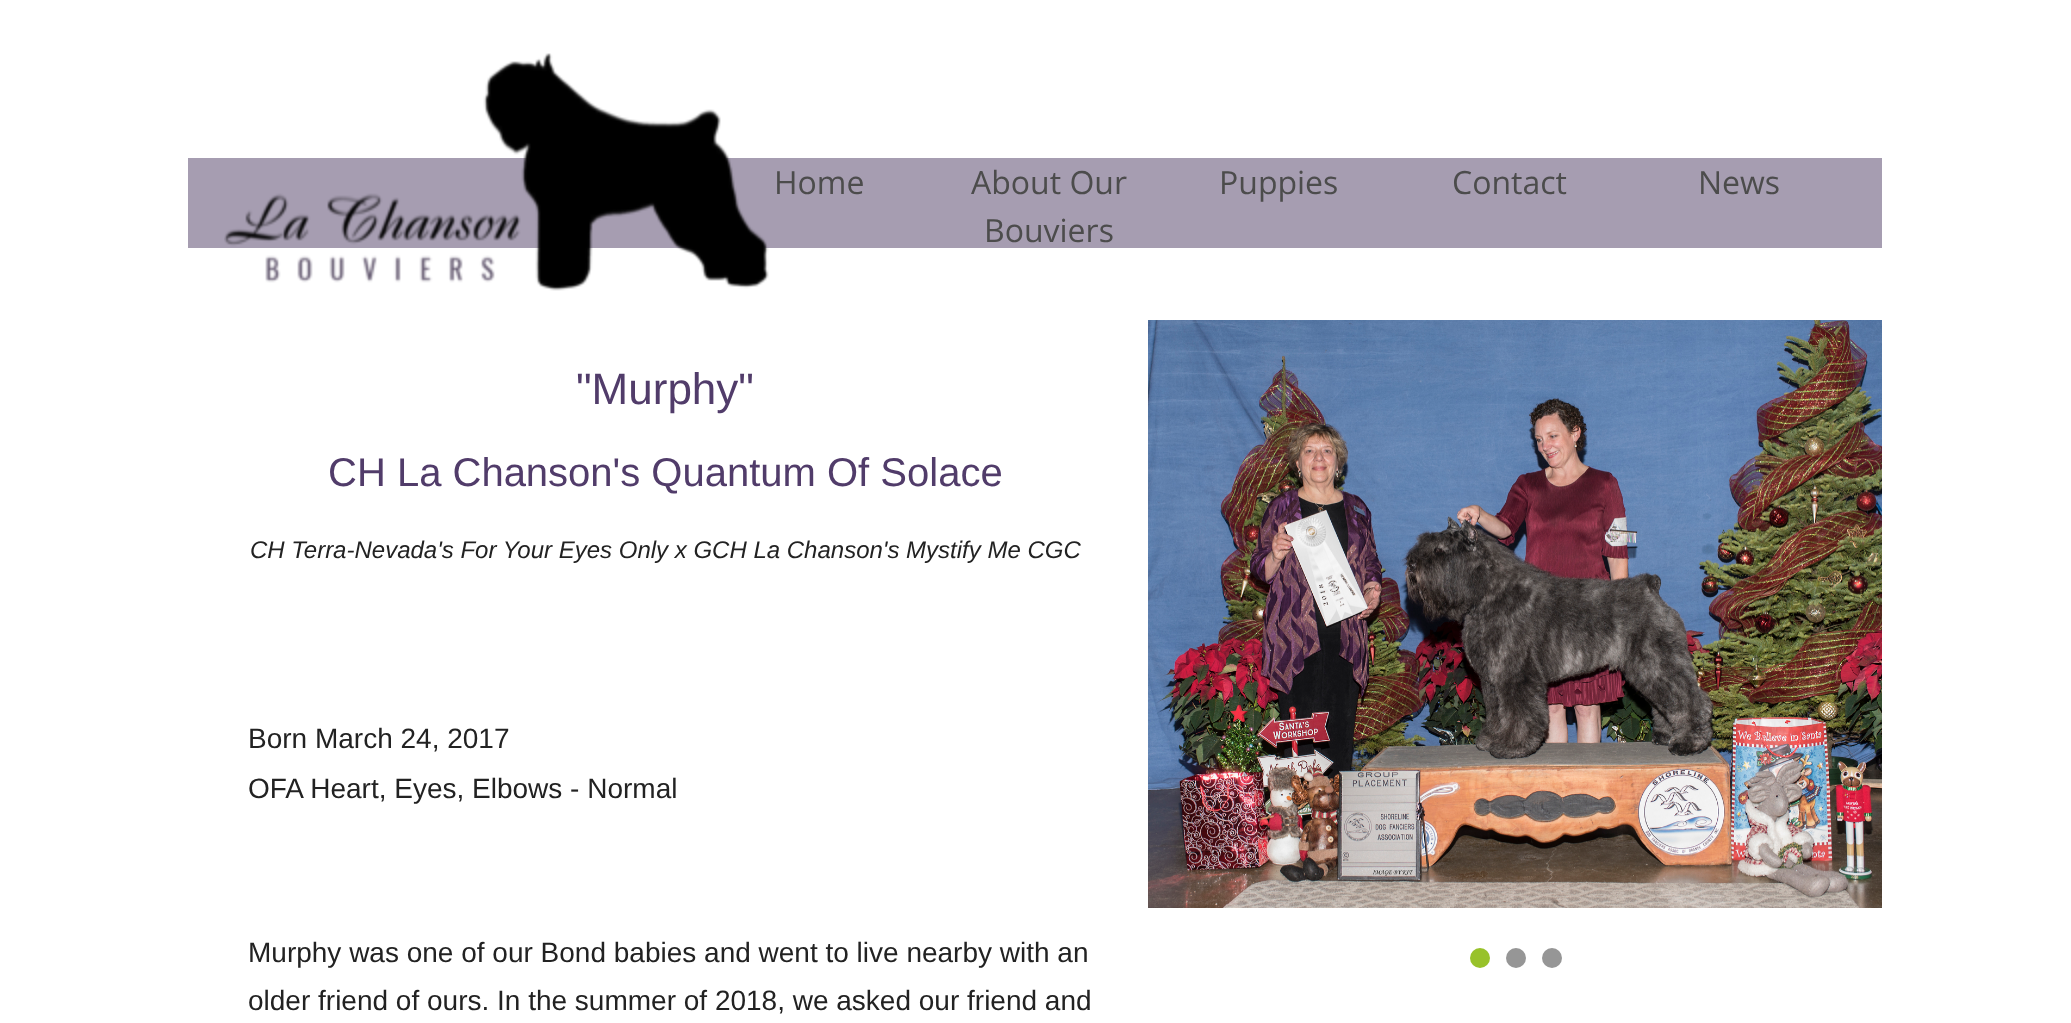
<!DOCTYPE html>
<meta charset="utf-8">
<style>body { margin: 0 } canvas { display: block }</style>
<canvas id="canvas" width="2071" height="1023"></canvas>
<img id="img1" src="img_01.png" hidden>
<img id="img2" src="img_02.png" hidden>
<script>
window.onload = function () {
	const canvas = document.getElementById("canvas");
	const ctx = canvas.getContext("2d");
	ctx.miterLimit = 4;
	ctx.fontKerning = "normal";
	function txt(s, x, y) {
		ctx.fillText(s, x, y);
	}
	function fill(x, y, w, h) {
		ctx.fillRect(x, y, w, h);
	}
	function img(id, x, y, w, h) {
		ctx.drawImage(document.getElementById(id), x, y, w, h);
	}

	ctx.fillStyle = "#FFFFFF";
	fill(0, 0, 2071, 1023);
	ctx.fillStyle = "#A69DB1";
	fill(188, 158, 1694, 90);
	img("img1", 224, 53, 545, 238);
	img("img2", 1148, 320, 734, 588);
	ctx.fillStyle = "#98C22A";
	ctx.beginPath();
	ctx.arc(1480, 958, 10, 0, Math.PI * 2);
	ctx.fill();
	ctx.fillStyle = "#969696";
	ctx.beginPath();
	ctx.arc(1516, 958, 10, 0, Math.PI * 2);
	ctx.fill();
	ctx.beginPath();
	ctx.arc(1552, 958, 10, 0, Math.PI * 2);
	ctx.fill();
	ctx.font = "32px Open Sans";
	ctx.fillStyle = "#4C4C4C";
	txt("Home", 774, 194);
	txt("About Our", 971, 194);
	txt("Bouviers", 984, 242);
	txt("Puppies", 1219, 194);
	txt("Contact", 1452, 194);
	txt("News", 1698, 194);
	ctx.font = "44px Liberation Sans";
	ctx.fillStyle = "#513C6A";
	txt("\"Murphy\"", 576, 404);
	ctx.font = "40px Liberation Sans";
	txt("CH La Chanson's Quantum Of Solace", 328, 486);
	ctx.font = "italic 24px Liberation Sans";
	ctx.fillStyle = "#222222";
	txt("CH Terra-Nevada's For Your Eyes Only x GCH La Chanson's Mystify Me CGC", 250, 558);
	ctx.font = "28px Liberation Sans";
	txt("Born March 24, 2017", 248, 748);
	txt("OFA Heart, Eyes, Elbows - Normal", 248, 798);
	txt("Murphy was one of our Bond babies and went to live nearby with an", 248, 962);
	txt("older friend of ours. In the summer of 2018, we asked our friend and", 248, 1010);
};
</script>
